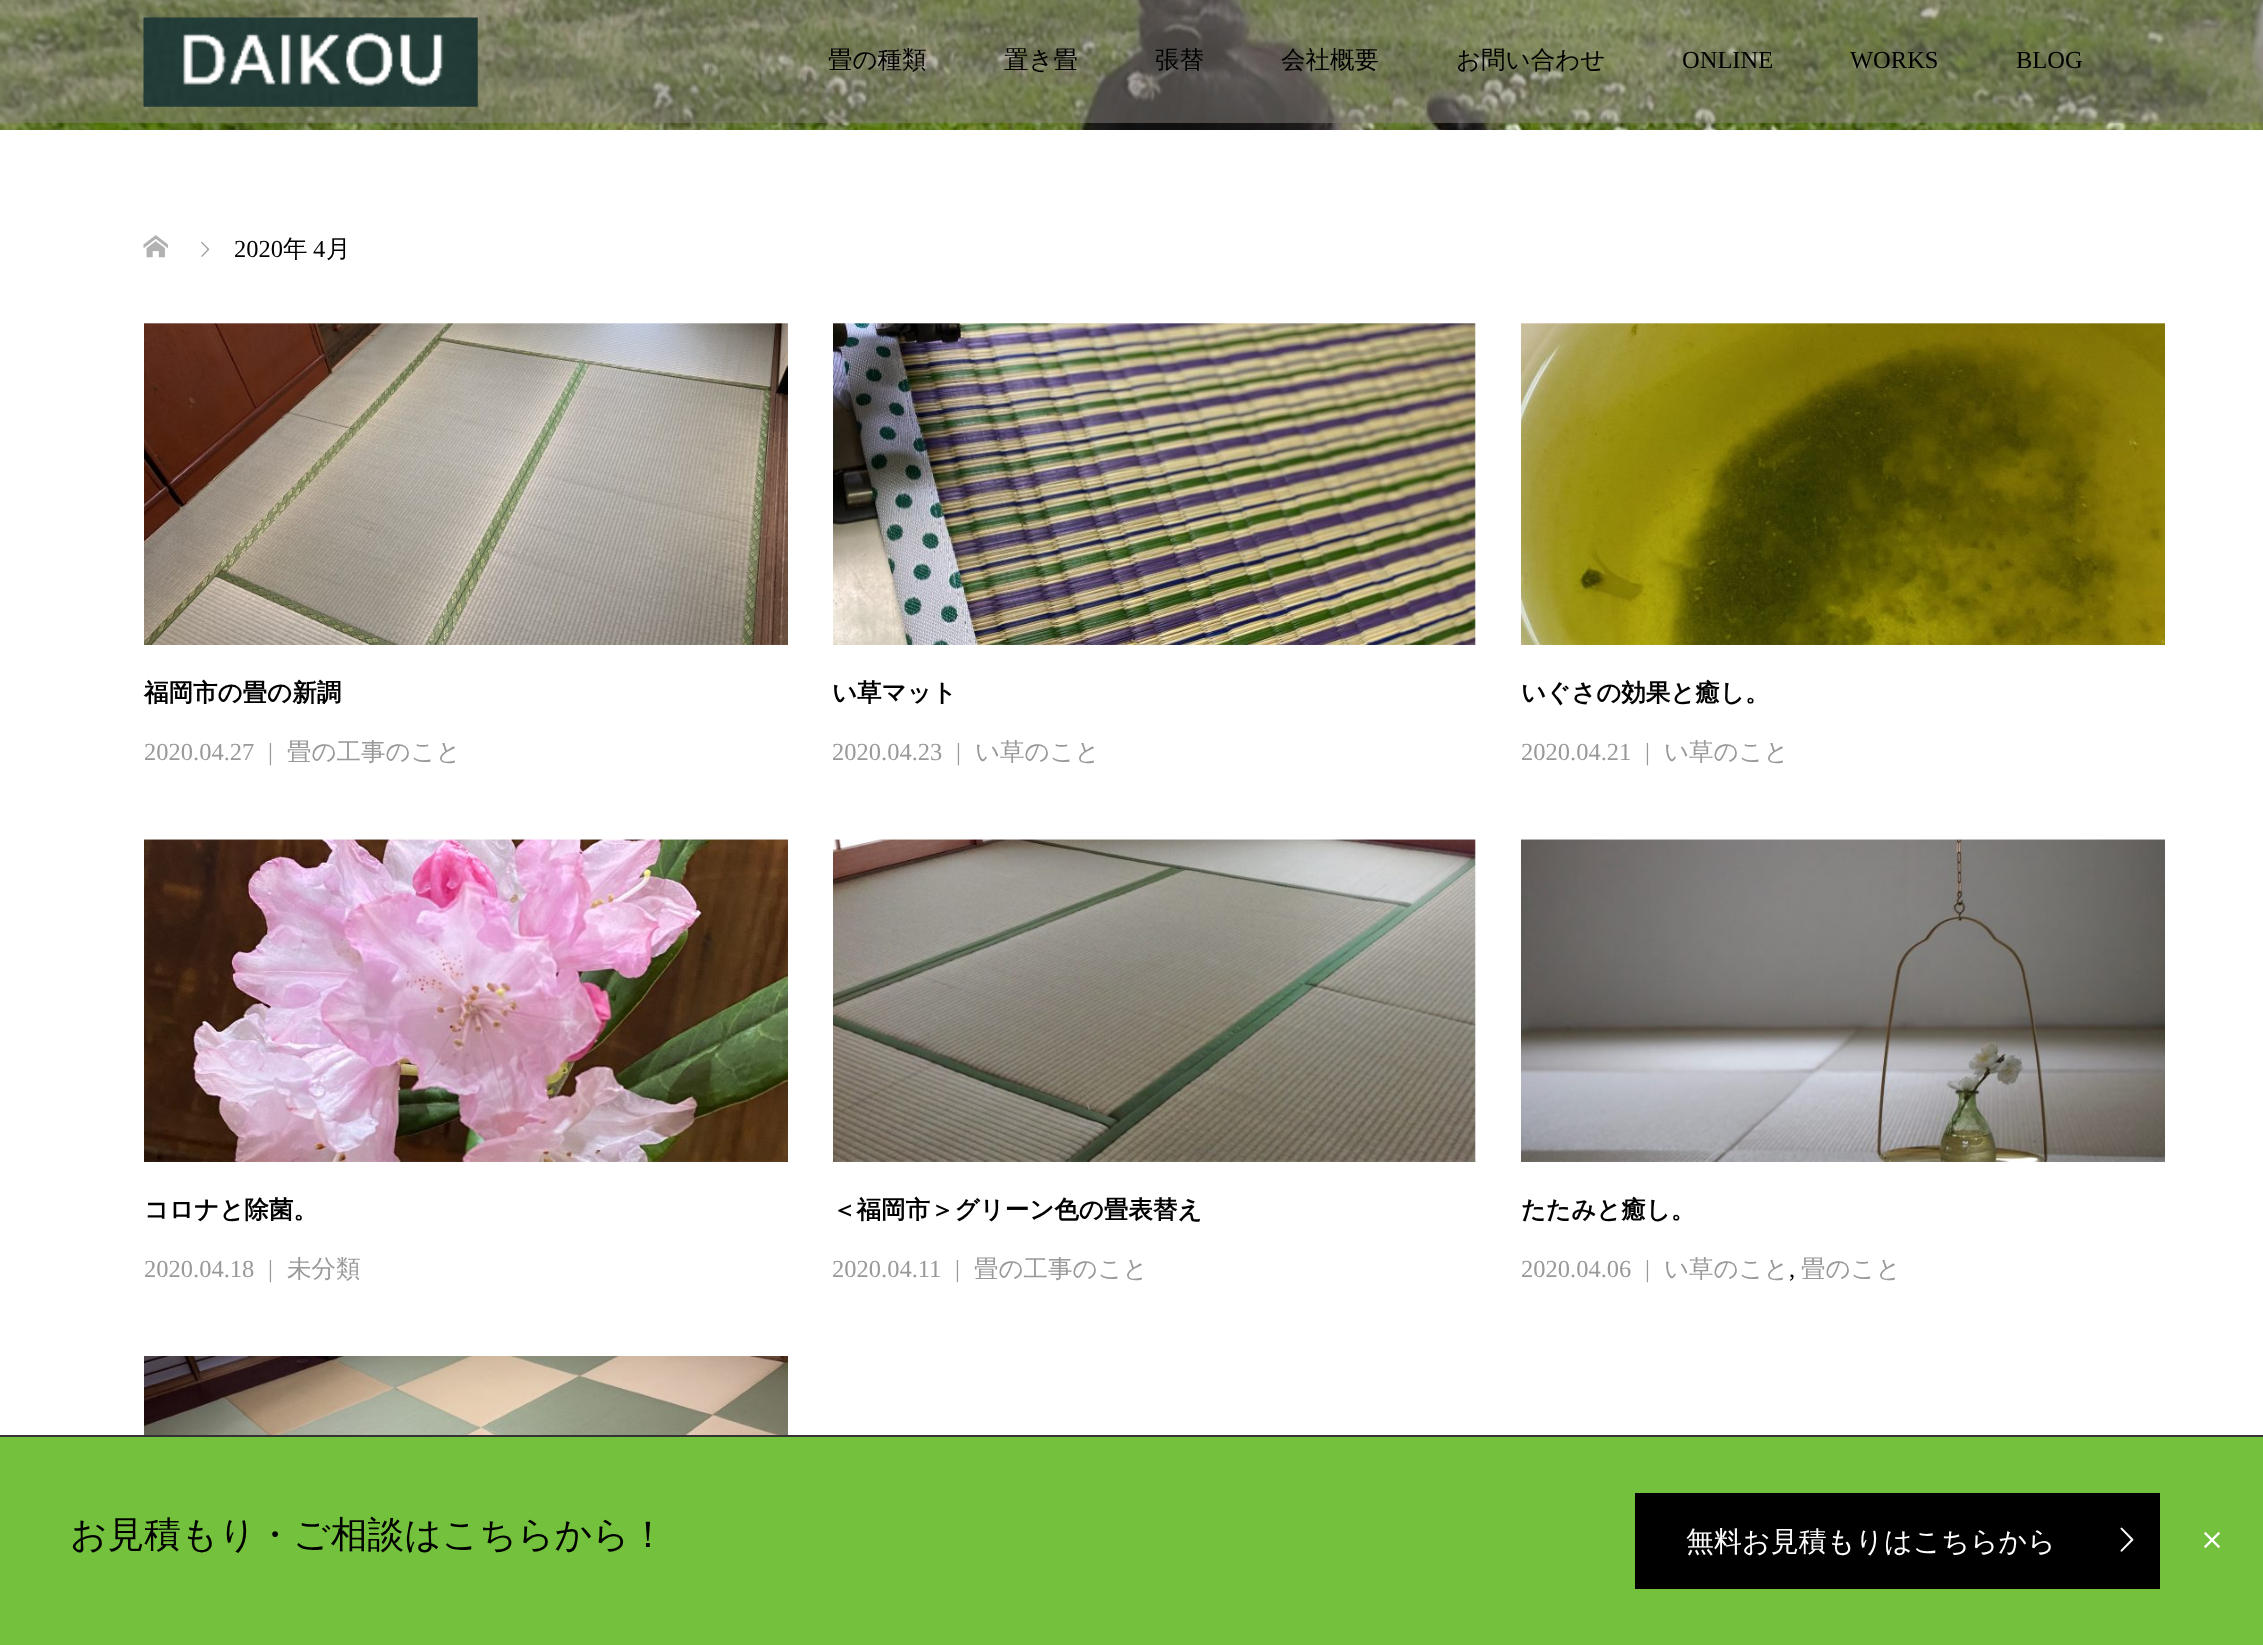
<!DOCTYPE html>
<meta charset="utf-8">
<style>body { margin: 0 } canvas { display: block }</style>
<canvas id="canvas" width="2263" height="1645"></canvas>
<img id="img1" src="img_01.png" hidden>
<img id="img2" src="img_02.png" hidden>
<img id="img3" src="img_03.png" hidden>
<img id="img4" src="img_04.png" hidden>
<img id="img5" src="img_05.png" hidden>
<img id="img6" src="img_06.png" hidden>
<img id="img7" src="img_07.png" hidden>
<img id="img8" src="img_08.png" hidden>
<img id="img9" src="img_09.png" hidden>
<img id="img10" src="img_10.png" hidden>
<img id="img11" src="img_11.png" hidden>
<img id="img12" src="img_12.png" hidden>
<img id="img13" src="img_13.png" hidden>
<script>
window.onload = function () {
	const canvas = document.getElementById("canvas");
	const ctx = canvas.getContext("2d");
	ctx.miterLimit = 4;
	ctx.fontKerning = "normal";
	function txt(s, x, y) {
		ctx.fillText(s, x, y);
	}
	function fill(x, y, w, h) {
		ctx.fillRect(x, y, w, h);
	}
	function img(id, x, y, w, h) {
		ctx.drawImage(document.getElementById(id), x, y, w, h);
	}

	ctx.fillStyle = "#FFFFFF";
	fill(0, 0, 2263, 1645);
	img("img1", 0, 0, 2263, 130);
	img("img2", 143, 17, 335, 90);
	img("img3", 143, 235, 25, 23);
	img("img4", 201, 241, 9, 16);
	img("img5", 144, 323, 644, 322);
	img("img6", 833, 323, 643, 322);
	img("img7", 1521, 323, 644, 322);
	img("img8", 144, 839, 644, 323);
	img("img9", 833, 839, 643, 323);
	img("img10", 1521, 839, 644, 323);
	img("img11", 144, 1356, 644, 79);
	ctx.fillStyle = "#73C13C";
	fill(0, 1437, 2263, 208);
	ctx.fillStyle = "#333333";
	fill(0, 1435, 2263, 2);
	ctx.fillStyle = "#000000";
	fill(1635, 1493, 525, 96);
	img("img12", 2120, 1527, 14, 25);
	img("img13", 2203, 1531, 18, 18);
	ctx.font = "500 24.5px WenQuanYi Zen Hei";
	txt("畳の種類", 828, 68);
	txt("置き畳", 1004, 68);
	txt("張替", 1155, 68);
	txt("会社概要", 1281, 68);
	txt("お問い合わせ", 1456, 68);
	ctx.font = "24.5px Liberation Serif";
	txt("ONLINE", 1682, 68);
	txt("WORKS", 1850, 68);
	txt("BLOG", 2016, 68);
	txt("2020", 234, 257);
	ctx.font = "500 24.5px WenQuanYi Zen Hei";
	txt("年", 283, 257);
	ctx.font = "24.5px Liberation Serif";
	txt("4", 313, 257);
	ctx.font = "500 24.5px WenQuanYi Zen Hei";
	txt("月", 326, 257);
	ctx.font = "bold 24.5px WenQuanYi Zen Hei";
	txt("福岡市の畳の新調", 144, 701);
	ctx.font = "24.5px Liberation Serif";
	ctx.fillStyle = "#999999";
	txt("2020.04.27", 144, 760);
	txt("|", 268, 760);
	ctx.font = "500 24.5px WenQuanYi Zen Hei";
	txt("畳の工事のこと", 287, 760);
	ctx.font = "bold 24.5px WenQuanYi Zen Hei";
	ctx.fillStyle = "#000000";
	txt("い草マット", 832, 701);
	ctx.font = "24.5px Liberation Serif";
	ctx.fillStyle = "#999999";
	txt("2020.04.23", 832, 760);
	txt("|", 956, 760);
	ctx.font = "500 24.5px WenQuanYi Zen Hei";
	txt("い草のこと", 975, 760);
	ctx.font = "bold 24.5px WenQuanYi Zen Hei";
	ctx.fillStyle = "#000000";
	txt("いぐさの効果と癒し。", 1521, 701);
	ctx.font = "24.5px Liberation Serif";
	ctx.fillStyle = "#999999";
	txt("2020.04.21", 1521, 760);
	txt("|", 1645, 760);
	ctx.font = "500 24.5px WenQuanYi Zen Hei";
	txt("い草のこと", 1664, 760);
	ctx.font = "bold 24.5px WenQuanYi Zen Hei";
	ctx.fillStyle = "#000000";
	txt("コロナと除菌。", 144, 1218);
	ctx.font = "24.5px Liberation Serif";
	ctx.fillStyle = "#999999";
	txt("2020.04.18", 144, 1277);
	txt("|", 268, 1277);
	ctx.font = "500 24.5px WenQuanYi Zen Hei";
	txt("未分類", 287, 1277);
	ctx.font = "bold 24.5px WenQuanYi Zen Hei";
	ctx.fillStyle = "#000000";
	txt("＜福岡市＞グリーン色の畳表替え", 832, 1218);
	ctx.font = "24.5px Liberation Serif";
	ctx.fillStyle = "#999999";
	txt("2020.04.11", 832, 1277);
	txt("|", 955, 1277);
	ctx.font = "500 24.5px WenQuanYi Zen Hei";
	txt("畳の工事のこと", 974, 1277);
	ctx.font = "bold 24.5px WenQuanYi Zen Hei";
	ctx.fillStyle = "#000000";
	txt("たたみと癒し。", 1521, 1218);
	ctx.font = "24.5px Liberation Serif";
	ctx.fillStyle = "#999999";
	txt("2020.04.06", 1521, 1277);
	txt("|", 1645, 1277);
	ctx.font = "500 24.5px WenQuanYi Zen Hei";
	txt("い草のこと", 1664, 1277);
	ctx.font = "24.5px Liberation Serif";
	ctx.fillStyle = "#000000";
	txt(",", 1789, 1277);
	ctx.font = "500 24.5px WenQuanYi Zen Hei";
	ctx.fillStyle = "#999999";
	txt("畳のこと", 1801, 1277);
	ctx.font = "500 36.75px WenQuanYi Zen Hei";
	ctx.fillStyle = "#000000";
	txt("お見積もり・ご相談はこちらから！", 70, 1547);
	ctx.font = "500 28px WenQuanYi Zen Hei";
	ctx.fillStyle = "#FFFFFF";
	txt("無料お見積もりはこちらから", 1686, 1551);
};
</script>
